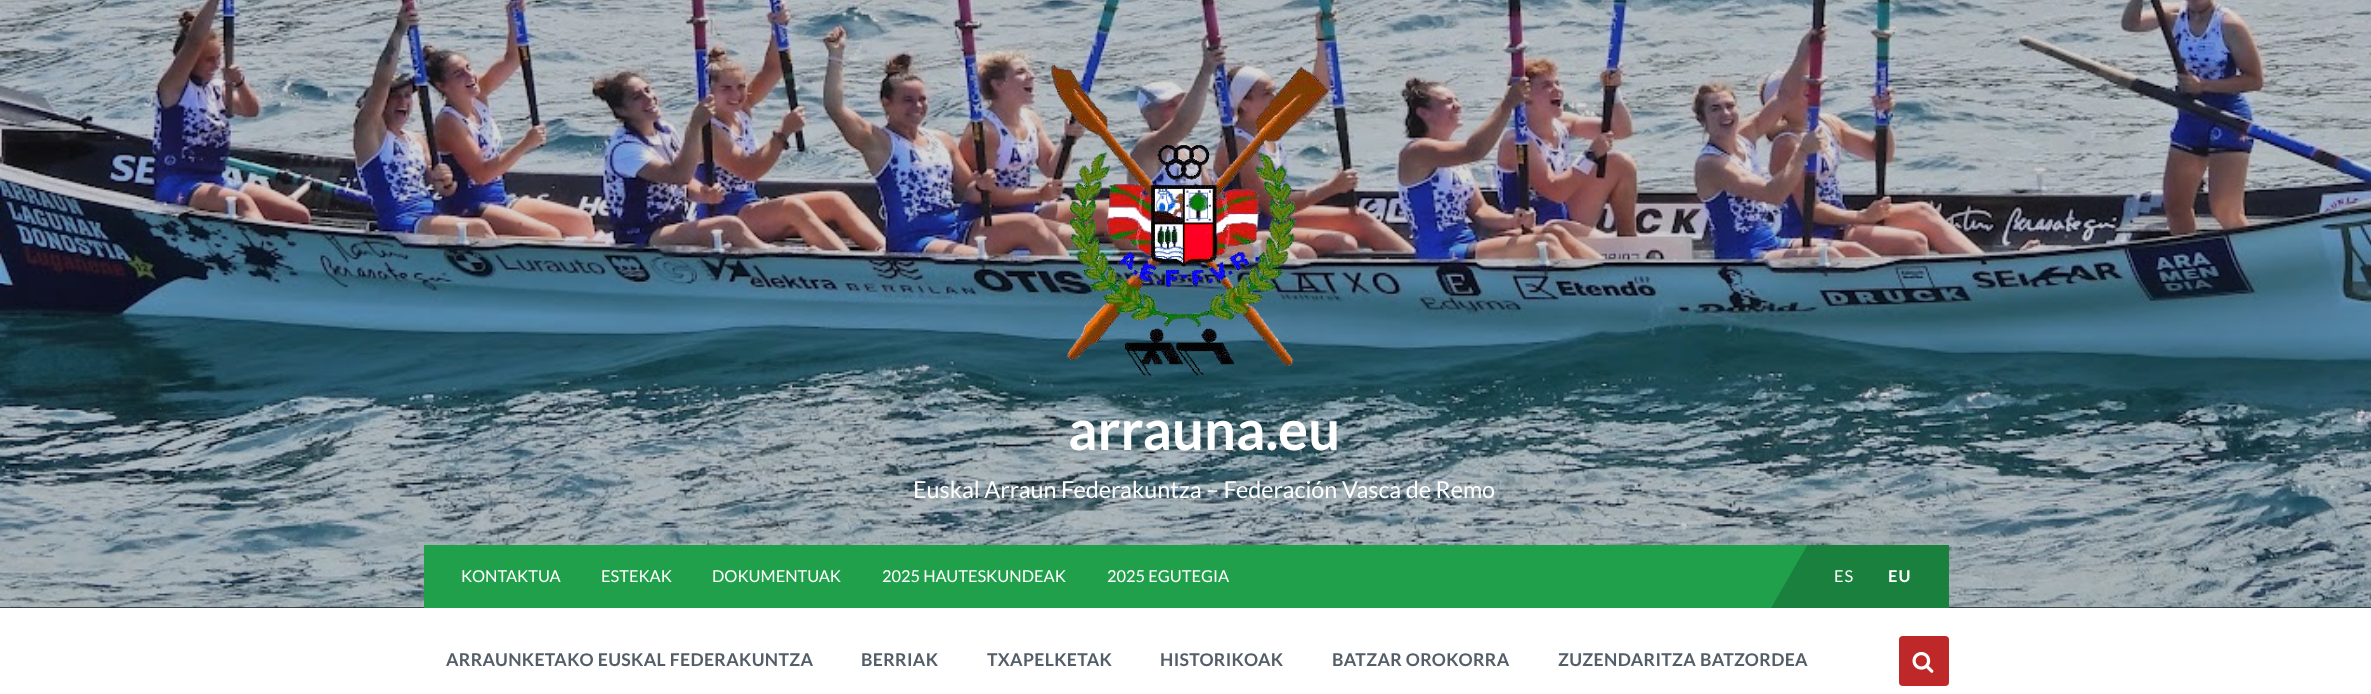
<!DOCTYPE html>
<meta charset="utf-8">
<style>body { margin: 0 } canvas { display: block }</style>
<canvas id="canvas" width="2371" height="694"></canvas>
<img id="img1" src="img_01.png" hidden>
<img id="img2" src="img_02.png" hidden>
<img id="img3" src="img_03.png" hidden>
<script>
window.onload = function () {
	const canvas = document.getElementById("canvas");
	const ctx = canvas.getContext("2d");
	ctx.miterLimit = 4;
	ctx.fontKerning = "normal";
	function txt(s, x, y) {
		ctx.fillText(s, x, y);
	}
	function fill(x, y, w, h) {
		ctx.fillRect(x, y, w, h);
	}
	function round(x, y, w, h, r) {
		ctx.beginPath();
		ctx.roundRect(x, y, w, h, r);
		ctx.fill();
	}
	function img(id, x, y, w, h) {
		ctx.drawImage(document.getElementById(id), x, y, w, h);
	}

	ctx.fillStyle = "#FFFFFF";
	fill(0, 0, 2371, 694);
	ctx.fillStyle = "#1E2427";
	fill(0, 607, 2371, 1);
	img("img1", 0, 0, 2371, 608);
	ctx.fillStyle = "rgba(0, 0, 0, 0.15)";
	fill(0, 0, 2371, 608);
	img("img2", 1051, 64, 278, 314);
	ctx.fillStyle = "#21A04C";
	fill(424, 545, 1384, 63);
	ctx.save();
	ctx.beginPath();
	ctx.rect(424, 545, 1525, 63);
	ctx.clip();
	ctx.fillStyle = "#1A803D";
	ctx.beginPath();
	ctx.moveTo(1888, 405);
	ctx.lineTo(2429, 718);
	ctx.lineTo(2304, 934);
	ctx.lineTo(1763, 622);
	ctx.closePath();
	ctx.fill();
	ctx.restore();
	ctx.fillStyle = "#BF2828";
	round(1899, 636, 50, 50, 4);
	img("img3", 1912, 652, 22, 21);
	ctx.font = "bold 56.25px Lato";
	ctx.fillStyle = "#FFFFFF";
	txt("arrauna.eu", 1068, 450);
	ctx.font = "23.4px Lato";
	txt("Euskal Arraun Federakuntza – Federación Vasca de Remo", 913, 498);
	ctx.font = "16.4px Lato";
	txt("KONTAKTUA", 461, 582);
	txt("ESTEKAK", 601, 582);
	txt("DOKUMENTUAK", 712, 582);
	txt("2025 HAUTESKUNDEAK", 882, 582);
	txt("2025 EGUTEGIA", 1107, 582);
	ctx.letterSpacing = "1px";
	txt("ES", 1834, 582);
	ctx.font = "bold 16.4px Lato";
	txt("EU", 1888, 582);
	ctx.letterSpacing = "0.35px";
	ctx.font = "bold 17.6px Lato";
	ctx.fillStyle = "#545E69";
	txt("ARRAUNKETAKO EUSKAL FEDERAKUNTZA", 446, 666);
	txt("BERRIAK", 861, 666);
	txt("TXAPELKETAK", 987, 666);
	txt("HISTORIKOAK", 1160, 666);
	txt("BATZAR OROKORRA", 1332, 666);
	txt("ZUZENDARITZA BATZORDEA", 1558, 666);
};
</script>
